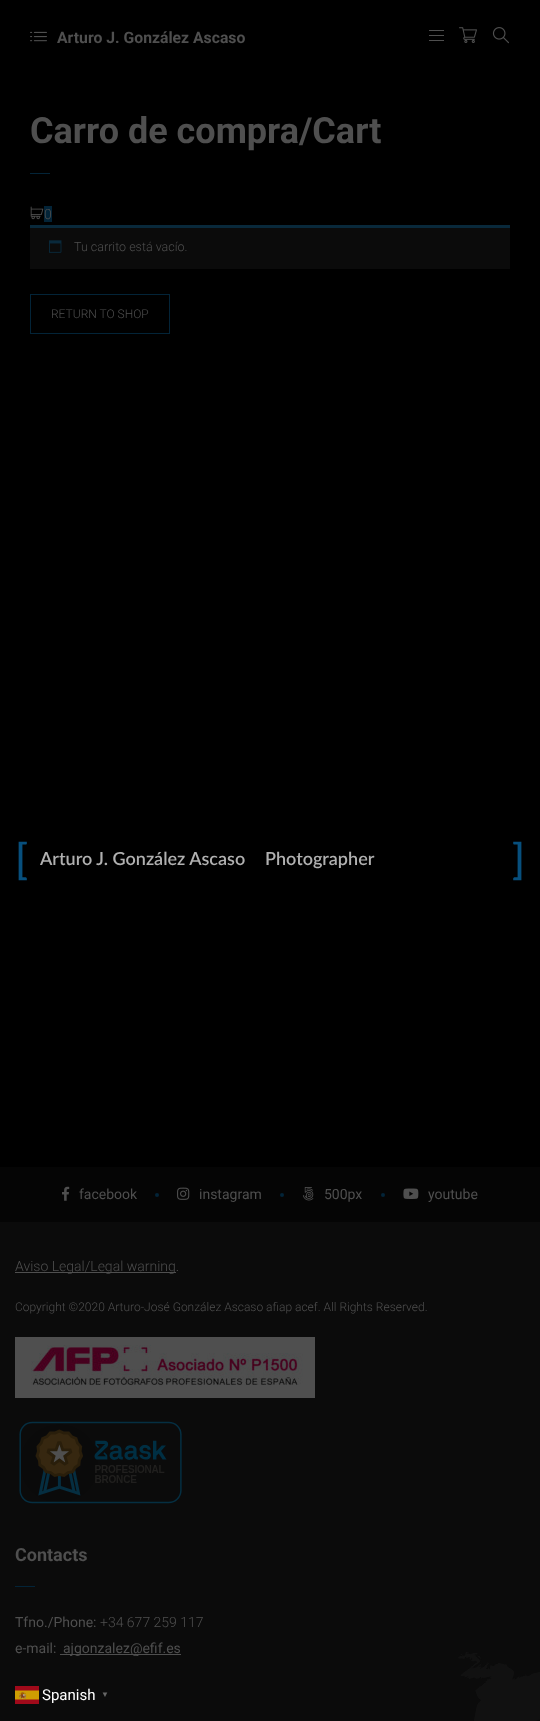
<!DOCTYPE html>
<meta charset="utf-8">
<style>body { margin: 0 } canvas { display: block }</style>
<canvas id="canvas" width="540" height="1721"></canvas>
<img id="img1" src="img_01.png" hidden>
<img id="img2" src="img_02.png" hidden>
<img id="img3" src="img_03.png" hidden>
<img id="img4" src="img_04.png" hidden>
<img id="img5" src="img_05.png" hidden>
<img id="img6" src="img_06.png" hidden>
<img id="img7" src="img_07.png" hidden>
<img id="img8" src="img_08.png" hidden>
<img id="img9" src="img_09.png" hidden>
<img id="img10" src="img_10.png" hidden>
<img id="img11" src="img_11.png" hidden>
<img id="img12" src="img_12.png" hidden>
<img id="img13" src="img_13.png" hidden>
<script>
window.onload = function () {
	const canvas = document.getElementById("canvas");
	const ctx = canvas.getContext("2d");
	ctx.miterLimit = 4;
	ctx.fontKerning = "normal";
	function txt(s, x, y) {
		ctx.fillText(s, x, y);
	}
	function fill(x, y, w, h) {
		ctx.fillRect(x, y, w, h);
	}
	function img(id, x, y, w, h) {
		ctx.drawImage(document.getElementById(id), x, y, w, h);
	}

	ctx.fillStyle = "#000000";
	fill(0, 0, 540, 1721);
	img("img1", 30, 31, 17, 11);
	ctx.fillStyle = "#4F4F4F";
	fill(429, 30, 15, 1);
	fill(429, 35, 15, 1);
	fill(429, 40, 15, 1);
	img("img2", 459, 27, 18, 16);
	img("img3", 492, 27, 17, 17);
	ctx.fillStyle = "#032438";
	fill(30, 173, 20, 1);
	img("img4", 30, 206, 14, 14);
	fill(44, 206, 8, 16);
	ctx.fillStyle = "#0B0B0B";
	fill(30, 228, 480, 41);
	ctx.fillStyle = "#09293B";
	fill(30, 225, 480, 3);
	img("img5", 49, 240, 13, 13);
	ctx.strokeStyle = "#032438";
	ctx.strokeRect(30.5, 294.5, 139, 39);
	ctx.fillStyle = "#050505";
	fill(0, 1167, 540, 55);
	img("img6", 62, 1186, 8, 15);
	ctx.fillStyle = "#032438";
	ctx.beginPath();
	ctx.arc(157, 1195, 2, 0, Math.PI * 2);
	ctx.fill();
	img("img7", 177, 1187, 13, 13);
	ctx.beginPath();
	ctx.arc(282, 1195, 2, 0, Math.PI * 2);
	ctx.fill();
	img("img8", 302, 1187, 12, 14);
	ctx.beginPath();
	ctx.arc(383, 1195, 2, 0, Math.PI * 2);
	ctx.fill();
	img("img9", 403, 1188, 16, 11);
	ctx.fillStyle = "#0B0B0B";
	fill(0, 1222, 540, 499);
	img("img10", 458, 1652, 82, 69);
	ctx.fillStyle = "#4F4F4F";
	fill(15, 1272, 161, 1);
	img("img11", 15, 1337, 300, 61);
	img("img12", 19, 1421, 163, 83);
	ctx.fillStyle = "#032438";
	fill(15, 1586, 20, 1);
	ctx.fillStyle = "#4F4F4F";
	fill(60, 1654, 121, 1);
	img("img13", 15, 1686, 24, 18);
	ctx.font = "bold 15.75px Roboto";
	txt("Arturo J. González Ascaso", 57, 43);
	ctx.font = "bold 36px Roboto";
	txt("Carro de compra/Cart", 30, 143);
	ctx.font = "300 14px Roboto";
	txt("0", 44, 219);
	ctx.font = "300 12.5px Roboto";
	txt("Tu carrito está vacío.", 74, 251);
	ctx.font = "300 12px Roboto";
	txt("RETURN TO SHOP", 51, 318);
	ctx.font = "600 42px Lato";
	ctx.fillStyle = "#074F7D";
	txt("[", 15, 874);
	ctx.font = "600 18px Lato";
	ctx.fillStyle = "#B0B0B0";
	txt("Arturo J. González Ascaso", 40, 865);
	txt("Photographer", 265, 865);
	ctx.font = "600 42px Lato";
	ctx.fillStyle = "#074F7D";
	txt("]", 512, 874);
	ctx.font = "14px Roboto";
	ctx.fillStyle = "#4F4F4F";
	txt("facebook", 79, 1199);
	txt("instagram", 199, 1199);
	txt("500px", 324, 1199);
	txt("youtube", 428, 1199);
	ctx.font = "300 14px Roboto";
	txt("Aviso Legal/Legal warning.", 15, 1271);
	ctx.font = "300 12px Roboto";
	txt("Copyright ©2020 Arturo-José González Ascaso afiap acef. All Rights Reserved.", 15, 1311);
	ctx.font = "bold 18px Roboto";
	txt("Contacts", 15, 1561);
	ctx.font = "14px Roboto";
	txt("Tfno./Phone:", 15, 1627);
	ctx.font = "300 14px Roboto";
	txt("+34 677 259 117", 100, 1627);
	ctx.font = "14px Roboto";
	txt("e-mail:", 15, 1653);
	txt("ajgonzalez@efif.es", 63, 1653);
	ctx.font = "15px Roboto";
	ctx.fillStyle = "#FFFFFF";
	txt("Spanish", 42, 1700);
	ctx.font = "bold 8px Liberation Serif";
	ctx.fillStyle = "#666666";
	txt("▼", 101, 1697);
};
</script>
